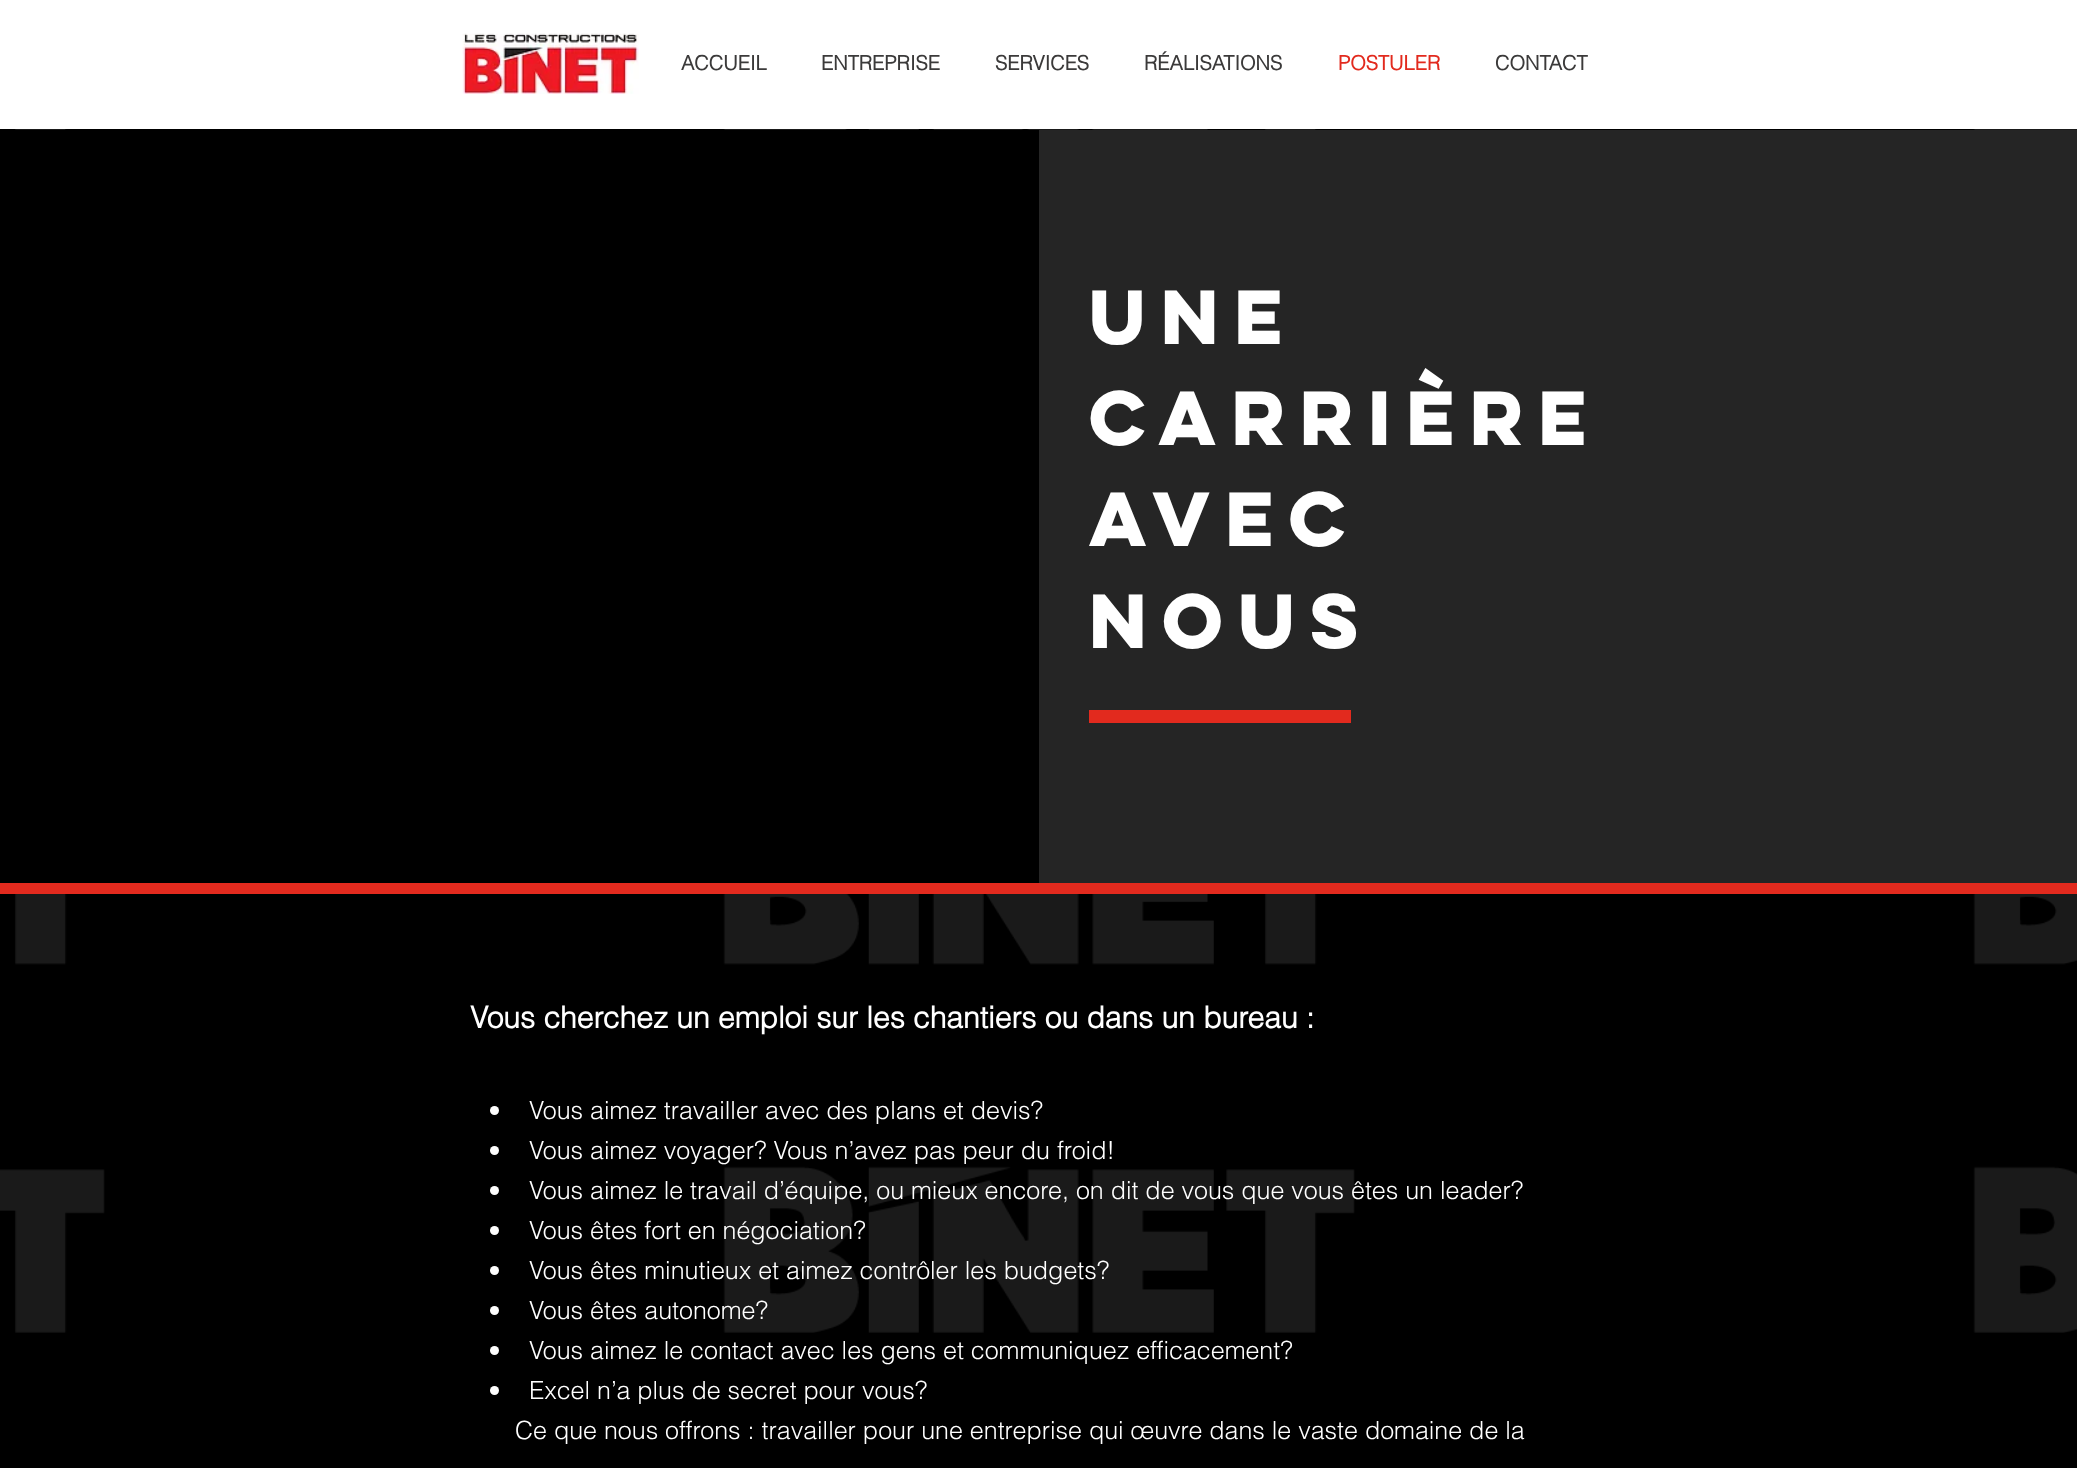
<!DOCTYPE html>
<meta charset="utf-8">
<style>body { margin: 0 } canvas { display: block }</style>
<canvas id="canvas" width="2077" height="1468"></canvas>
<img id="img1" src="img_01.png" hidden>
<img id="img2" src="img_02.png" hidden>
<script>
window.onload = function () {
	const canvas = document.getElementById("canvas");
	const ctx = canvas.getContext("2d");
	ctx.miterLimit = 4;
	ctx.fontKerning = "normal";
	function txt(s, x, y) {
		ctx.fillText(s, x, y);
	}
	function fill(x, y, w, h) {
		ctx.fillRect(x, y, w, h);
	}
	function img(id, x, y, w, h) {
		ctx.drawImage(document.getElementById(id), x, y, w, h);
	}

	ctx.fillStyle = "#000000";
	fill(0, 0, 2077, 1468);
	ctx.fillStyle = "#FFFFFF";
	fill(0, 0, 2077, 129);
	img("img1", 462, 33, 177, 61);
	img("img2", 0, 129, 2077, 1204);
	ctx.fillStyle = "#000000";
	fill(0, 130, 1039, 753);
	ctx.fillStyle = "#252525";
	fill(1039, 130, 1038, 753);
	ctx.fillStyle = "#E22A1E";
	fill(1089, 710, 262, 13);
	fill(0, 883, 2077, 11);
	ctx.fillStyle = "#FFFFFF";
	ctx.beginPath();
	ctx.arc(494.5, 1110.5, 4.5, 0, Math.PI * 2);
	ctx.fill();
	ctx.beginPath();
	ctx.arc(494.5, 1150.5, 4.5, 0, Math.PI * 2);
	ctx.fill();
	ctx.beginPath();
	ctx.arc(494.5, 1190.5, 4.5, 0, Math.PI * 2);
	ctx.fill();
	ctx.beginPath();
	ctx.arc(494.5, 1230.5, 4.5, 0, Math.PI * 2);
	ctx.fill();
	ctx.beginPath();
	ctx.arc(494.5, 1270.5, 4.5, 0, Math.PI * 2);
	ctx.fill();
	ctx.beginPath();
	ctx.arc(494.5, 1310.5, 4.5, 0, Math.PI * 2);
	ctx.fill();
	ctx.beginPath();
	ctx.arc(494.5, 1350.5, 4.5, 0, Math.PI * 2);
	ctx.fill();
	ctx.beginPath();
	ctx.arc(494.5, 1390.5, 4.5, 0, Math.PI * 2);
	ctx.fill();
	ctx.font = "bold 20px helvetica";
	ctx.fillStyle = "#3B3A3A";
	txt("ACCUEIL", 681, 70);
	txt("ENTREPRISE", 821, 70);
	txt("SERVICES", 995, 70);
	txt("RÉALISATIONS", 1144, 70);
	ctx.fillStyle = "#E22A1E";
	txt("POSTULER", 1338, 70);
	ctx.fillStyle = "#3B3A3A";
	txt("CONTACT", 1495, 70);
	ctx.font = "bold 68.75px 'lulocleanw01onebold'";
	ctx.fillStyle = "#FFFFFF";
	txt("UNE", 1089, 344);
	txt("CARRIÈRE", 1089, 445);
	txt("AVEC", 1089, 546);
	txt("NOUS", 1089, 648);
	ctx.font = "bold 30px helvetica";
	txt("Vous cherchez un emploi sur les chantiers ou dans un bureau :", 470, 1028);
	ctx.font = "300 25px helvetica";
	txt("  Vous aimez travailler avec des plans et devis?", 515, 1119);
	txt("  Vous aimez voyager? Vous n’avez pas peur du froid!", 515, 1159);
	txt("  Vous aimez le travail d’équipe, ou mieux encore, on dit de vous que vous êtes un leader?", 515, 1199);
	txt("  Vous êtes fort en négociation?", 515, 1239);
	txt("  Vous êtes minutieux et aimez contrôler les budgets?", 515, 1279);
	txt("  Vous êtes autonome?", 515, 1319);
	txt("  Vous aimez le contact avec les gens et communiquez efficacement?", 515, 1359);
	txt("  Excel n’a plus de secret pour vous?", 515, 1399);
	txt("Ce que nous offrons : travailler pour une entreprise qui œuvre dans le vaste domaine de la", 515, 1439);
};
</script>
